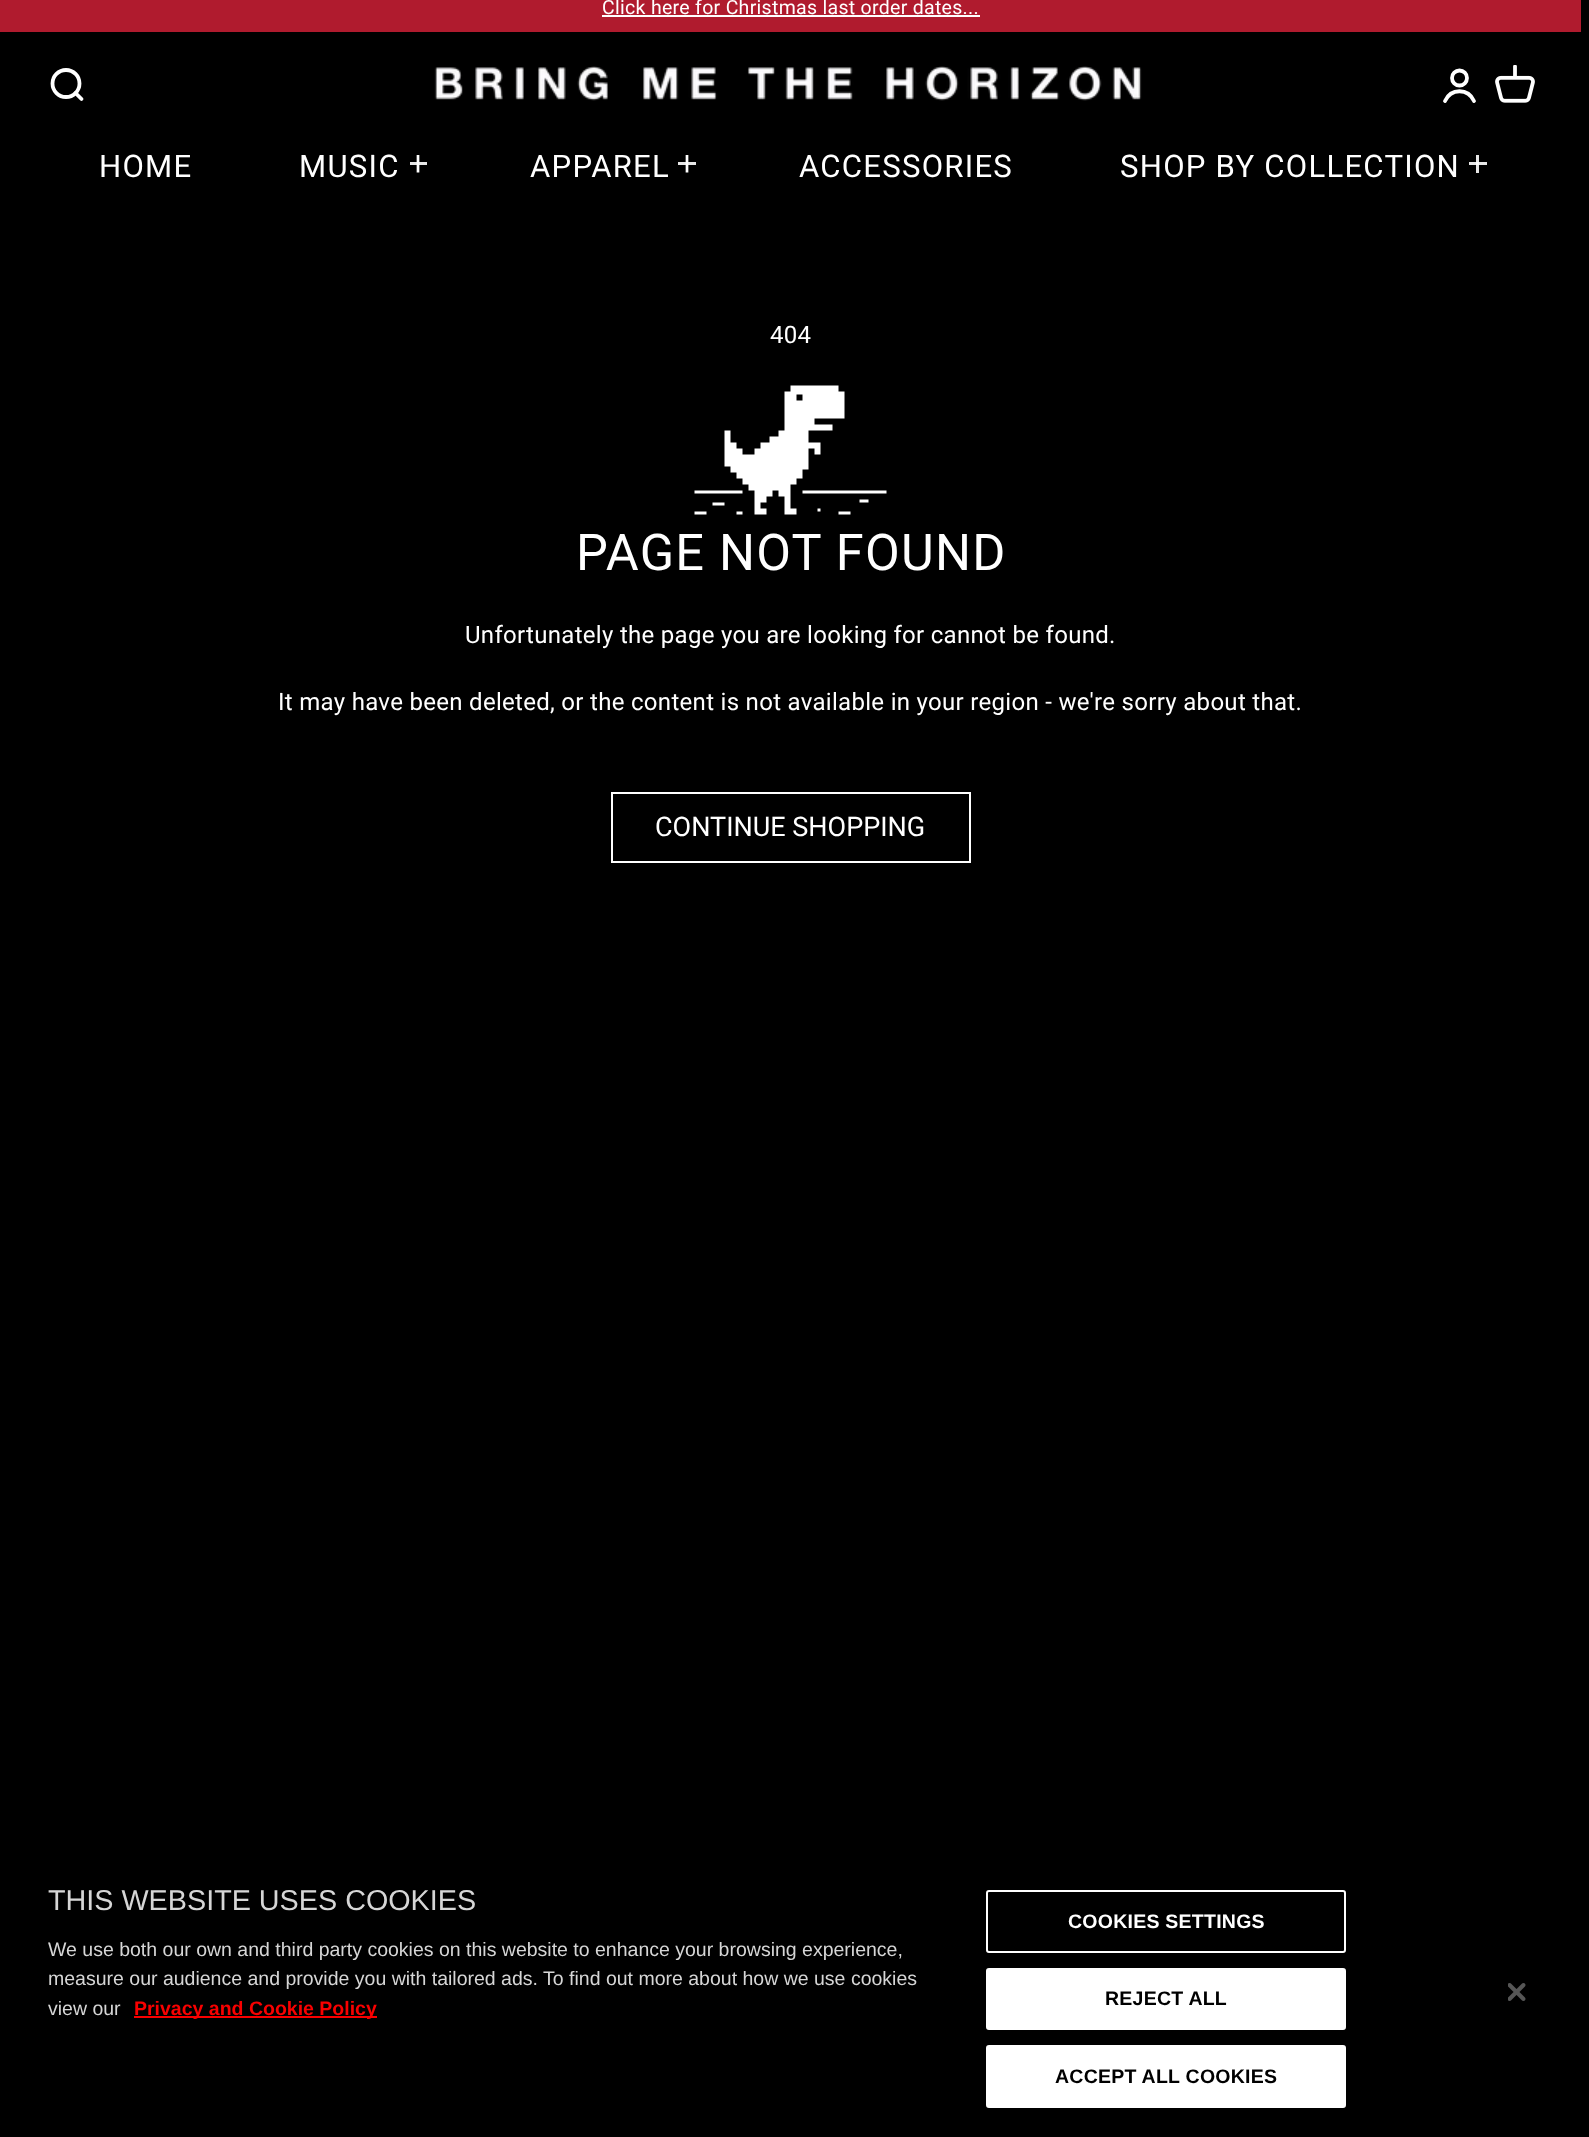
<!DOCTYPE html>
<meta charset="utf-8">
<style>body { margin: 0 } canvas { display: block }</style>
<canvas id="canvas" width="1589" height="2137"></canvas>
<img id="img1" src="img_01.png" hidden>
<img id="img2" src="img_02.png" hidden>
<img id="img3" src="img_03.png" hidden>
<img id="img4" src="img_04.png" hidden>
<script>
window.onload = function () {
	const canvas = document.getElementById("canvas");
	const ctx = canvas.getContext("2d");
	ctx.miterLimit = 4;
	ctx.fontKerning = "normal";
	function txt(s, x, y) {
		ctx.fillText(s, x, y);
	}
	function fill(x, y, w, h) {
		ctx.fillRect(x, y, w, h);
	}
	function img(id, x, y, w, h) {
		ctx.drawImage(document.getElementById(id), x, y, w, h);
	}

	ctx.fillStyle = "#000000";
	fill(0, 0, 1589, 2137);
	ctx.fillStyle = "#E6E6E6";
	fill(1469, 162, 18, 3);
	ctx.fillStyle = "#B01B2E";
	fill(0, 0, 1581, 32);
	ctx.fillStyle = "#FFFFFF";
	fill(602, 15, 378, 2);
	ctx.beginPath();
	ctx.arc(66, 83.5, 13.5, 0, Math.PI * 2);
	ctx.strokeStyle = "#FFFFFF";
	ctx.lineWidth = 3.8;
	ctx.stroke();
	ctx.beginPath();
	ctx.moveTo(75.5, 93);
	ctx.lineTo(81.5, 99);
	ctx.lineCap = "round";
	ctx.lineJoin = "round";
	ctx.stroke();
	img("img1", 434, 66, 708, 35);
	ctx.beginPath();
	ctx.arc(1459.5, 78, 7.5, 0, Math.PI * 2);
	ctx.stroke();
	ctx.beginPath();
	ctx.moveTo(1445, 101);
	ctx.bezierCurveTo(1451, 88, 1468, 88, 1474, 101);
	ctx.lineJoin = "miter";
	ctx.stroke();
	img("img2", 1495, 65, 40, 38);
	ctx.save();
	ctx.beginPath();
	ctx.rect(410, 155, 18, 18);
	ctx.clip();
	ctx.beginPath();
	ctx.moveTo(418, 154.5);
	ctx.lineTo(418, 172.5);
	ctx.lineWidth = 2.7;
	ctx.lineCap = "butt";
	ctx.stroke();
	ctx.restore();
	ctx.fillStyle = "rgba(255, 255, 255, 0.9)";
	fill(410, 162, 17, 3);
	ctx.save();
	ctx.beginPath();
	ctx.rect(678, 155, 18, 18);
	ctx.clip();
	ctx.beginPath();
	ctx.moveTo(687, 154.5);
	ctx.lineTo(687, 172.5);
	ctx.lineWidth = 2.7;
	ctx.lineCap = "butt";
	ctx.stroke();
	ctx.restore();
	fill(678, 162, 18, 3);
	ctx.fillStyle = "#E6E6E6";
	fill(1476, 155, 3, 18);
	ctx.fillStyle = "#FDFDFD";
	fill(1476, 162, 3, 3);
	img("img3", 694, 385, 193, 130);
	ctx.lineWidth = 2;
	ctx.strokeRect(612, 793, 358, 69);
	ctx.fillStyle = "#F90000";
	fill(134, 2016, 243, 2);
	ctx.beginPath();
	ctx.roundRect(987, 1891, 358, 61, 2);
	ctx.stroke();
	ctx.fillStyle = "#FFFFFF";
	ctx.beginPath();
	ctx.roundRect(987, 1969, 358, 60, 2);
	ctx.fill();
	ctx.stroke();
	ctx.beginPath();
	ctx.roundRect(987, 2046, 358, 61, 2);
	ctx.fill();
	ctx.stroke();
	img("img4", 1508, 1983, 18, 18);
	ctx.letterSpacing = "0.3px";
	ctx.font = "19.5px Roboto";
	txt("Click here for Christmas last order dates...", 602, 14);
	ctx.letterSpacing = "1.25px";
	ctx.font = "31.1px Roboto";
	txt("HOME", 99, 177);
	txt("MUSIC", 299, 177);
	txt("APPAREL", 530, 177);
	txt("ACCESSORIES", 799, 177);
	txt("SHOP BY COLLECTION", 1120, 177);
	ctx.letterSpacing = "0.3px";
	ctx.font = "24px Roboto";
	txt("404", 770, 343);
	ctx.letterSpacing = "1.25px";
	ctx.font = "50.5px Roboto";
	txt("PAGE NOT FOUND", 576, 570);
	ctx.letterSpacing = "0.3px";
	ctx.font = "24px Roboto";
	txt("Unfortunately the page you are looking for cannot be found.", 465, 643);
	txt("It may have been deleted, or the content is not available in your region - we're sorry about that.", 278, 710);
	ctx.letterSpacing = "0px";
	ctx.font = "27px Roboto";
	txt("CONTINUE SHOPPING", 655, 836);
	ctx.font = "28.75px Liberation Sans";
	ctx.fillStyle = "#D6D6D6";
	txt("THIS WEBSITE USES COOKIES", 48, 1910);
	ctx.font = "19.5px Liberation Sans";
	txt("We use both our own and third party cookies on this website to enhance your browsing experience,", 48, 1956);
	txt("measure our audience and provide you with tailored ads. To find out more about how we use cookies", 48, 1985);
	txt("view our", 48, 2015);
	ctx.font = "bold 19.5px Liberation Sans";
	ctx.fillStyle = "#F90000";
	txt("Privacy and Cookie Policy", 134, 2015);
	ctx.letterSpacing = "0.25px";
	ctx.fillStyle = "#FFFFFF";
	txt("COOKIES SETTINGS", 1068, 1928);
	ctx.fillStyle = "#000000";
	txt("REJECT ALL", 1105, 2005);
	txt("ACCEPT ALL COOKIES", 1055, 2083);
};
</script>
